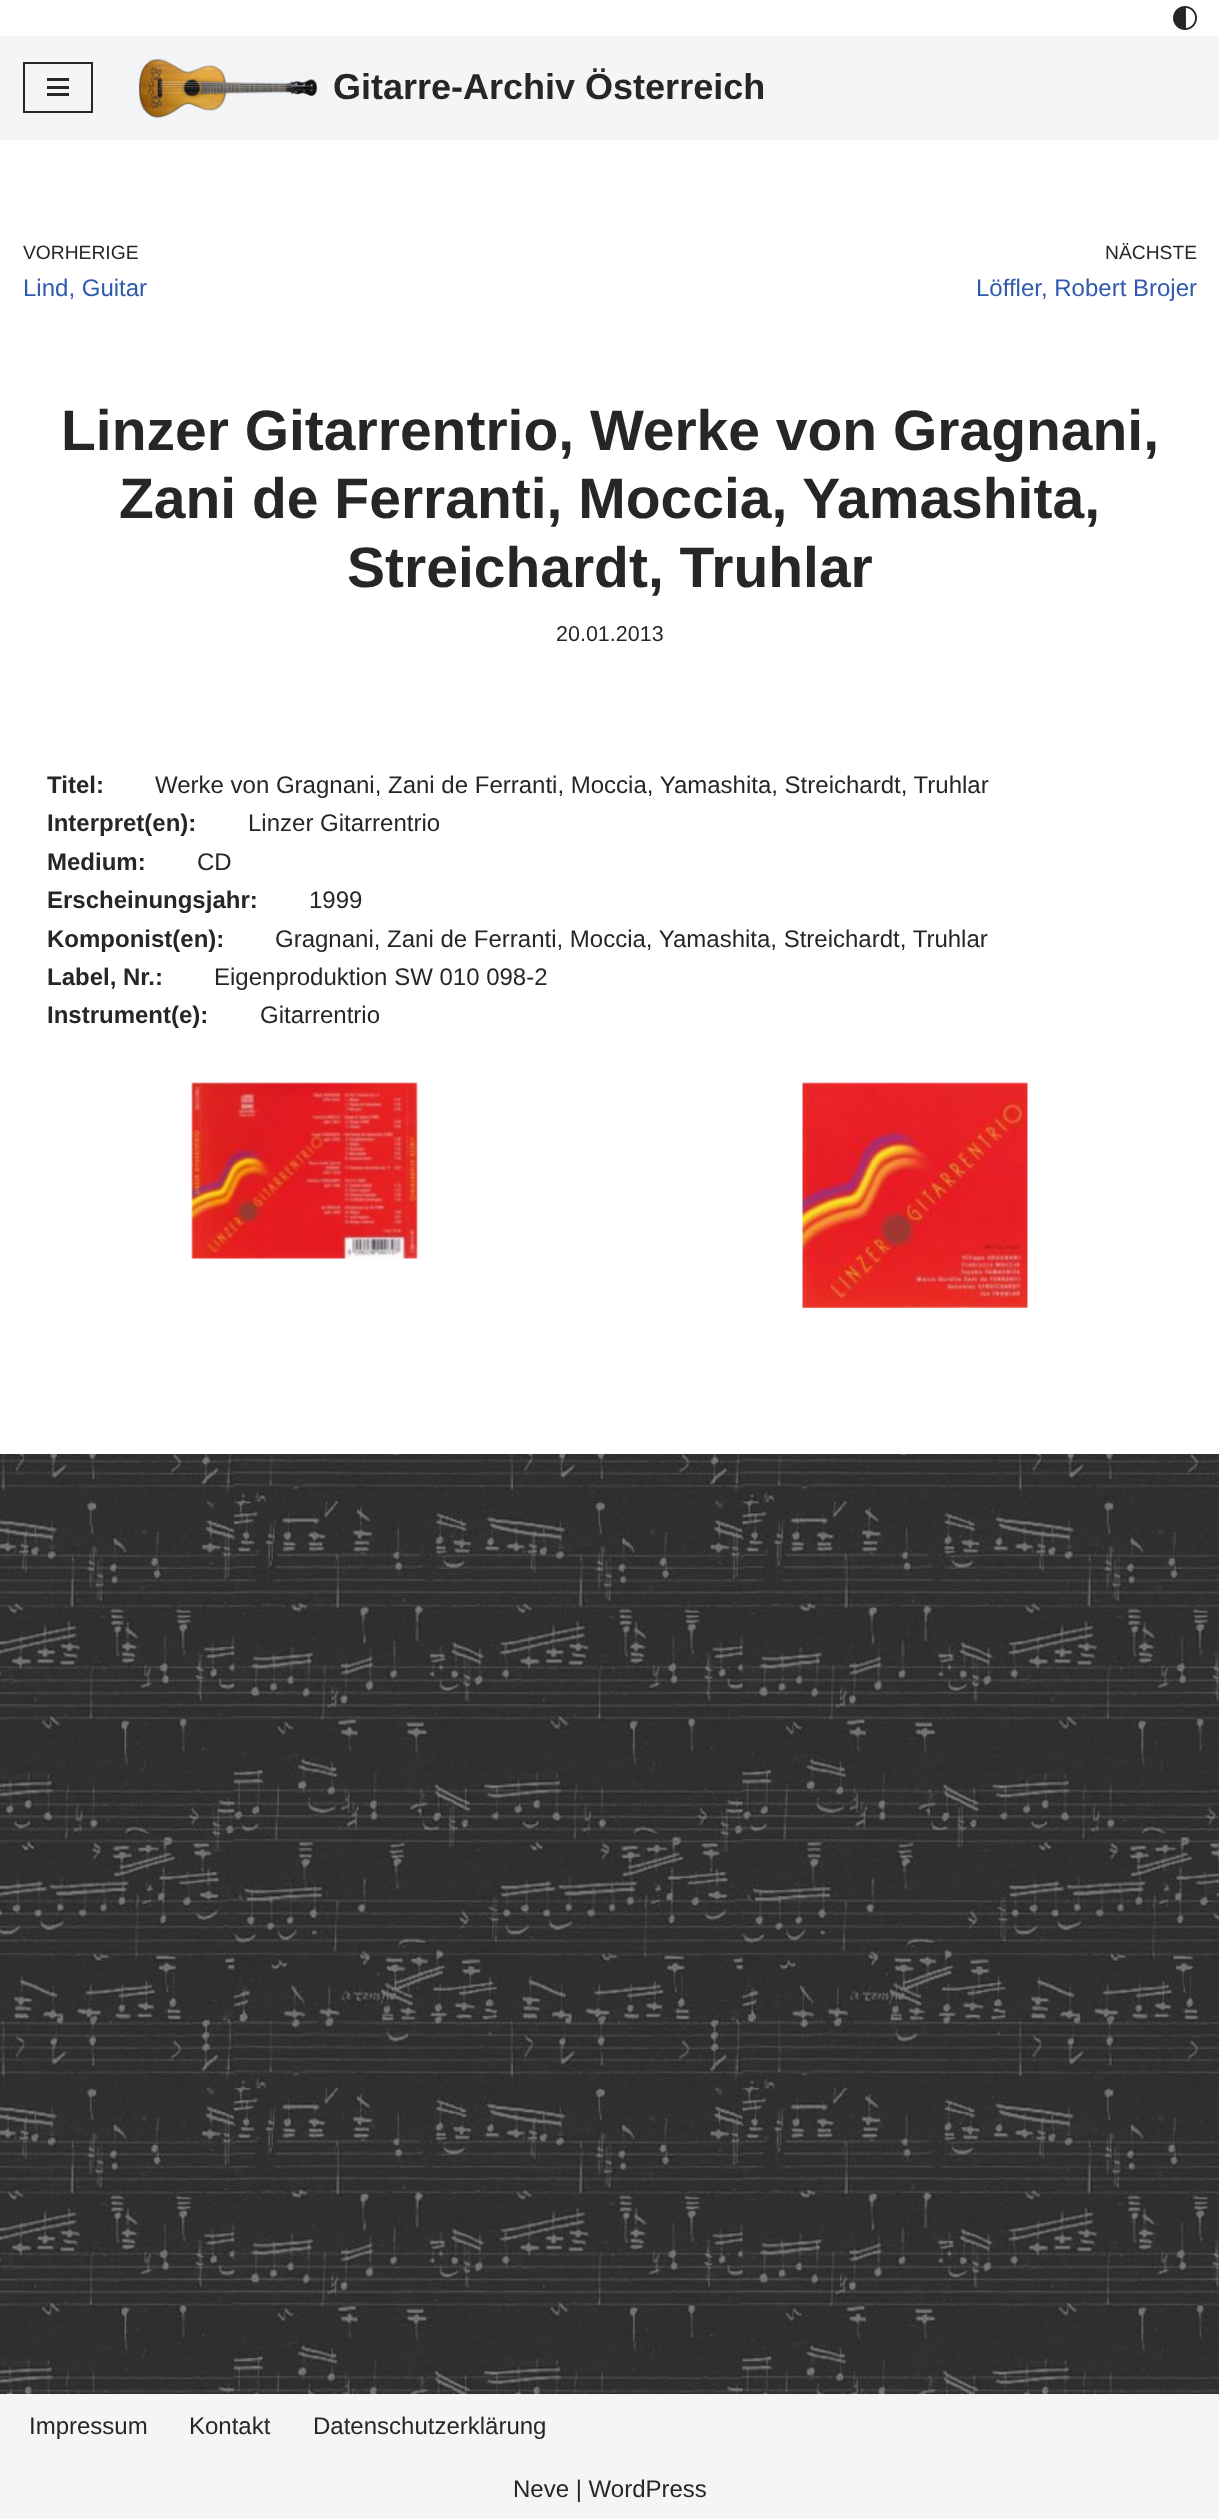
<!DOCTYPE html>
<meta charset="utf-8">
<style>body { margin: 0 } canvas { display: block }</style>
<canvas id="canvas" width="1219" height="2519"></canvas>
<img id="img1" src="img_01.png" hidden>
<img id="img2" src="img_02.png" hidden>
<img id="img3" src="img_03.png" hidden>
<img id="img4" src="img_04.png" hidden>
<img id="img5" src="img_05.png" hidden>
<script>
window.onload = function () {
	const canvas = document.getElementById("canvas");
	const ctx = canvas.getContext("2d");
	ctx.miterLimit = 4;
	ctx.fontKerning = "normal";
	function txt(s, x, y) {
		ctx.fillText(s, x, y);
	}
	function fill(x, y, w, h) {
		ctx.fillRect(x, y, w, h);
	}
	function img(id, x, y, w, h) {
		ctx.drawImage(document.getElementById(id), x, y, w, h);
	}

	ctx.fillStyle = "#FFFFFF";
	fill(0, 0, 1219, 2519);
	img("img1", 0, 1454, 1219, 940);
	img("img2", 1173, 6, 24, 24);
	ctx.fillStyle = "#F4F5F7";
	fill(0, 36, 1219, 104);
	ctx.strokeStyle = "#272626";
	ctx.lineWidth = 2;
	ctx.strokeRect(24, 63, 68, 49);
	ctx.fillStyle = "#272626";
	fill(47, 78, 22, 3);
	fill(47, 86, 22, 3);
	fill(47, 93, 22, 3);
	img("img3", 138, 58, 180, 60);
	img("img4", 191, 1082, 227, 177);
	img("img5", 802, 1082, 226, 226);
	ctx.fillStyle = "#F4F5F7";
	fill(0, 2394, 1219, 125);
	ctx.font = "bold 36px Liberation Sans";
	ctx.fillStyle = "#272626";
	txt("Gitarre-Archiv Österreich", 333, 99);
	ctx.font = "19.25px Liberation Sans";
	txt("VORHERIGE", 23, 259);
	ctx.font = "24px Liberation Sans";
	ctx.fillStyle = "#2F5AAE";
	txt("Lind, Guitar", 23, 296);
	ctx.font = "19.25px Liberation Sans";
	ctx.fillStyle = "#272626";
	txt("NÄCHSTE", 1105, 259);
	ctx.font = "24px Liberation Sans";
	ctx.fillStyle = "#2F5AAE";
	txt("Löffler, Robert Brojer", 976, 296);
	ctx.font = "bold 57px Liberation Sans";
	ctx.fillStyle = "#272626";
	txt("Linzer Gitarrentrio, Werke von Gragnani,", 61, 450);
	txt("Zani de Ferranti, Moccia, Yamashita,", 119, 518);
	txt("Streichardt, Truhlar", 347, 587);
	ctx.font = "21.5px Liberation Sans";
	txt("20.01.2013", 556, 641);
	ctx.font = "bold 24px Liberation Sans";
	txt("Titel:", 47, 793);
	ctx.font = "24px Liberation Sans";
	txt("Werke von Gragnani, Zani de Ferranti, Moccia, Yamashita, Streichardt, Truhlar", 155, 793);
	ctx.font = "bold 24px Liberation Sans";
	txt("Interpret(en):", 47, 831);
	ctx.font = "24px Liberation Sans";
	txt("Linzer Gitarrentrio", 248, 831);
	ctx.font = "bold 24px Liberation Sans";
	txt("Medium:", 47, 870);
	ctx.font = "24px Liberation Sans";
	txt("CD", 197, 870);
	ctx.font = "bold 24px Liberation Sans";
	txt("Erscheinungsjahr:", 47, 908);
	ctx.font = "24px Liberation Sans";
	txt("1999", 309, 908);
	ctx.font = "bold 24px Liberation Sans";
	txt("Komponist(en):", 47, 947);
	ctx.font = "24px Liberation Sans";
	txt("Gragnani, Zani de Ferranti, Moccia, Yamashita, Streichardt, Truhlar", 275, 947);
	ctx.font = "bold 24px Liberation Sans";
	txt("Label, Nr.:", 47, 985);
	ctx.font = "24px Liberation Sans";
	txt("Eigenproduktion SW 010 098-2", 214, 985);
	ctx.font = "bold 24px Liberation Sans";
	txt("Instrument(e):", 47, 1023);
	ctx.font = "24px Liberation Sans";
	txt("Gitarrentrio", 260, 1023);
	txt("Impressum", 29, 2434);
	txt("Kontakt", 189, 2434);
	txt("Datenschutzerklärung", 313, 2434);
	txt("Neve | WordPress", 513, 2497);
};
</script>
